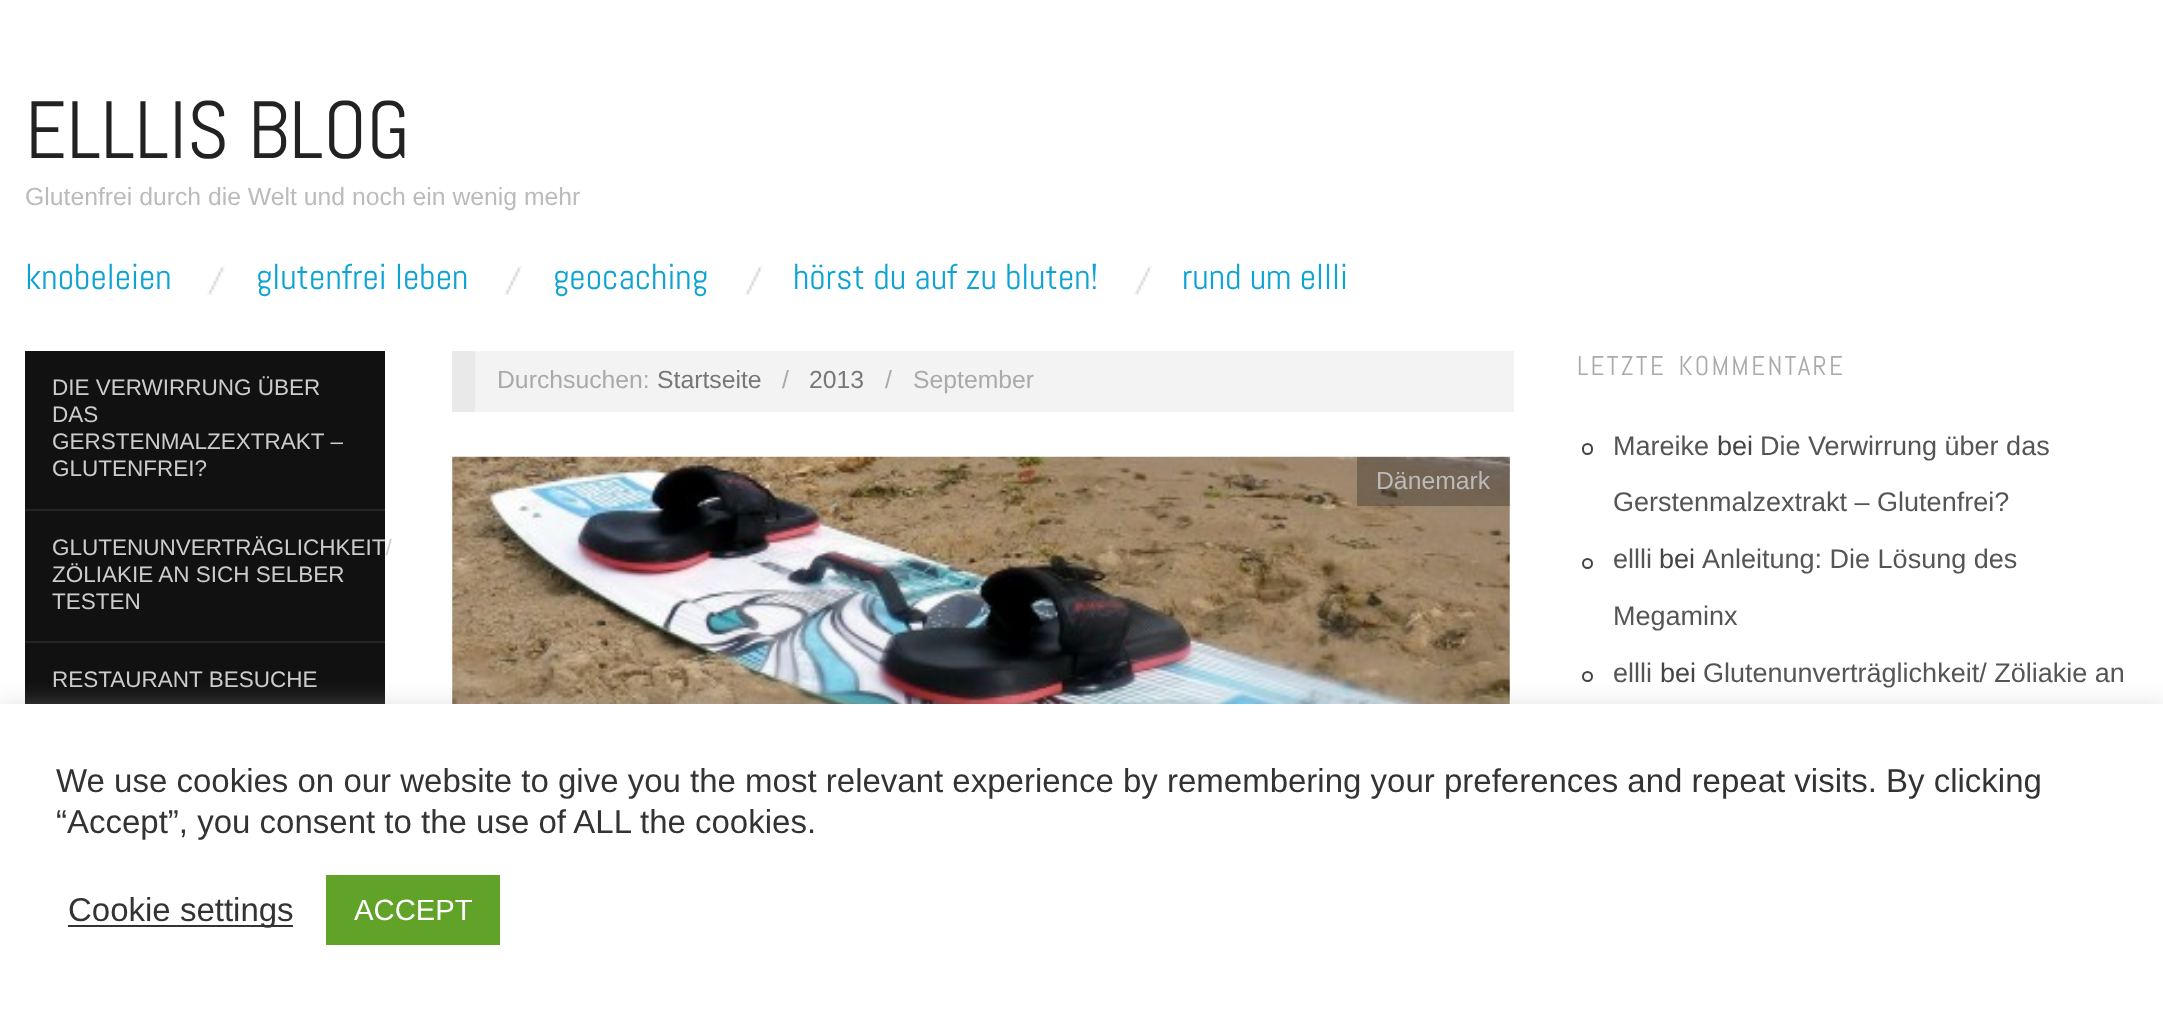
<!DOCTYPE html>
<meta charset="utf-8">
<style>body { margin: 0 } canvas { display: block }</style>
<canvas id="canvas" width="2163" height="1012"></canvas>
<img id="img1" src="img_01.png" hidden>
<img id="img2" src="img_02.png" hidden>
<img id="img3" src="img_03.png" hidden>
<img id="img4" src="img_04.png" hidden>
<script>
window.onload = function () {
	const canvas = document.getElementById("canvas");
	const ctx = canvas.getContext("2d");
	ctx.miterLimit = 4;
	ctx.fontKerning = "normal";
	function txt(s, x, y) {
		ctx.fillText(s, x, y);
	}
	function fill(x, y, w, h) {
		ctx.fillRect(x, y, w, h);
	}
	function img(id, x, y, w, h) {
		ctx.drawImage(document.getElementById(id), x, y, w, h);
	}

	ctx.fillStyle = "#FFFFFF";
	fill(0, 0, 2163, 1012);
	img("img1", 207, 265, 18, 30);
	img("img2", 504, 265, 18, 30);
	img("img3", 745, 265, 18, 30);
	img("img1", 1134, 265, 18, 30);
	ctx.fillStyle = "#111111";
	fill(25, 351, 360, 353);
	ctx.fillStyle = "#252525";
	fill(25, 509, 360, 2);
	fill(25, 641, 360, 2);
	ctx.fillStyle = "#F3F3F3";
	fill(475, 351, 1039, 61);
	ctx.fillStyle = "#E9E9E9";
	fill(452, 351, 23, 61);
	img("img4", 452, 456, 1058, 248);
	ctx.fillStyle = "rgba(0, 0, 0, 0.25)";
	fill(1357, 457, 153, 49);
	ctx.beginPath();
	ctx.roundRect(1583, 444, 9, 10, 4.5);
	ctx.strokeStyle = "#444444";
	ctx.lineWidth = 2;
	ctx.stroke();
	ctx.beginPath();
	ctx.arc(1587.5, 563.5, 4.5, 0, Math.PI * 2);
	ctx.stroke();
	ctx.beginPath();
	ctx.arc(1587.5, 676.5, 4.5, 0, Math.PI * 2);
	ctx.stroke();
	ctx.fillStyle = "rgba(172, 171, 171, 0.3)";
	ctx.filter = "blur(11px)";
	ctx.beginPath();
	ctx.rect(0, 702, 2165, 308);
	ctx.fill();
	ctx.filter = "none";
	ctx.fillStyle = "#FFFFFF";
	fill(0, 704, 2163, 308);
	ctx.fillStyle = "#333333";
	fill(68, 925, 225, 2);
	ctx.fillStyle = "#61A229";
	fill(326, 875, 174, 70);
	ctx.font = "81px Abel";
	ctx.fillStyle = "#222222";
	txt("ELLLIS BLOG", 25, 158);
	ctx.font = "24.75px Liberation Sans";
	ctx.fillStyle = "#BBBBBB";
	txt("Glutenfrei durch die Welt und noch ein wenig mehr", 25, 205);
	ctx.font = "36px Abel";
	ctx.fillStyle = "#0DA4D3";
	txt("knobeleien", 25, 289);
	txt("glutenfrei leben", 256, 289);
	txt("geocaching", 553, 289);
	txt("hörst du auf zu bluten!", 793, 289);
	txt("rund um ellli", 1182, 289);
	ctx.font = "22.5px Liberation Sans";
	ctx.fillStyle = "#CCCCCC";
	txt("DIE VERWIRRUNG ÜBER", 52, 395);
	txt("DAS", 52, 422);
	txt("GERSTENMALZEXTRAKT –", 52, 449);
	txt("GLUTENFREI?", 52, 476);
	txt("GLUTENUNVERTRÄGLICHKEIT/", 52, 555);
	txt("ZÖLIAKIE AN SICH SELBER", 52, 582);
	txt("TESTEN", 52, 609);
	txt("RESTAURANT BESUCHE", 52, 687);
	ctx.font = "24.75px Liberation Sans";
	ctx.fillStyle = "#AAAAAA";
	txt("Durchsuchen:", 497, 388);
	ctx.fillStyle = "#777777";
	txt("Startseite", 657, 388);
	ctx.fillStyle = "#AAAAAA";
	txt("/", 782, 388);
	ctx.fillStyle = "#777777";
	txt("2013", 809, 388);
	ctx.fillStyle = "#AAAAAA";
	txt("/", 885, 388);
	txt("September", 913, 388);
	ctx.fillStyle = "#BBBBBB";
	txt("Dänemark", 1376, 489);
	ctx.letterSpacing = "2.25px";
	ctx.wordSpacing = "4px";
	ctx.font = "27px Abel";
	ctx.fillStyle = "#AAAAAA";
	txt("LETZTE KOMMENTARE", 1577, 375);
	ctx.letterSpacing = "0px";
	ctx.wordSpacing = "0px";
	ctx.font = "27px Liberation Sans";
	ctx.fillStyle = "#555555";
	txt("Mareike", 1613, 455);
	ctx.fillStyle = "#444444";
	txt("bei", 1717, 455);
	ctx.fillStyle = "#555555";
	txt("Die Verwirrung über das", 1760, 455);
	txt("Gerstenmalzextrakt – Glutenfrei?", 1613, 511);
	txt("ellli", 1613, 568);
	ctx.fillStyle = "#444444";
	txt("bei", 1659, 568);
	ctx.fillStyle = "#555555";
	txt("Anleitung: Die Lösung des", 1702, 568);
	txt("Megaminx", 1613, 625);
	txt("ellli", 1613, 682);
	ctx.fillStyle = "#444444";
	txt("bei", 1660, 682);
	ctx.fillStyle = "#555555";
	txt("Glutenunverträglichkeit/ Zöliakie an", 1703, 682);
	ctx.font = "33px Liberation Sans";
	ctx.fillStyle = "#333333";
	txt("We use cookies on our website to give you the most relevant experience by remembering your preferences and repeat visits. By clicking", 56, 792);
	txt("“Accept”, you consent to the use of ALL the cookies.", 56, 833);
	txt("Cookie settings", 68, 921);
	ctx.font = "29.25px Liberation Sans";
	ctx.fillStyle = "#FFFFFF";
	txt("ACCEPT", 354, 920);
};
</script>
